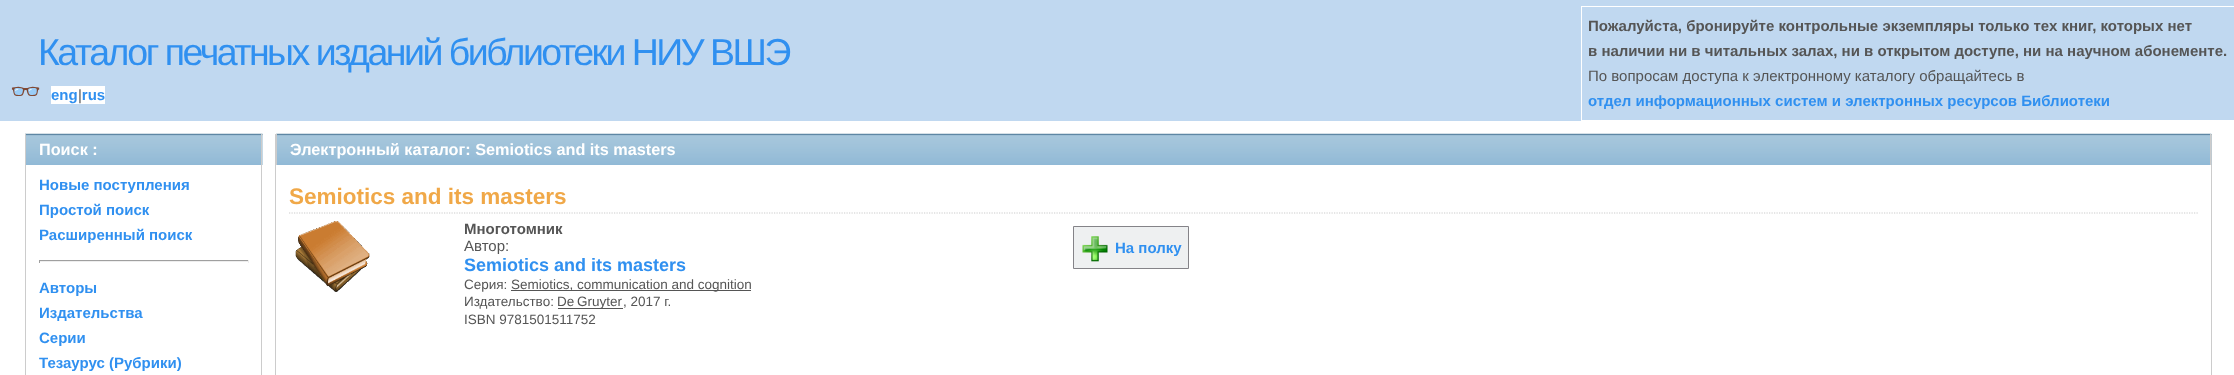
<!DOCTYPE html>
<meta charset="utf-8">
<style>body { margin: 0 } canvas { display: block }</style>
<canvas id="canvas" width="2234" height="375"></canvas>
<img id="img1" src="img_01.png" hidden>
<img id="img2" src="img_02.png" hidden>
<img id="img3" src="img_03.png" hidden>
<img id="img4" src="img_04.png" hidden>
<script>
window.onload = function () {
	const canvas = document.getElementById("canvas");
	const ctx = canvas.getContext("2d");
	ctx.miterLimit = 4;
	ctx.fontKerning = "normal";
	function txt(s, x, y) {
		ctx.fillText(s, x, y);
	}
	function fill(x, y, w, h) {
		ctx.fillRect(x, y, w, h);
	}
	function img(id, x, y, w, h) {
		ctx.drawImage(document.getElementById(id), x, y, w, h);
	}

	ctx.fillStyle = "#FFFFFF";
	fill(0, 0, 2234, 375);
	ctx.fillStyle = "#C0D8F0";
	fill(0, 0, 2234, 121);
	ctx.fillStyle = "#FFFFFF";
	fill(51, 86, 54, 18);
	ctx.strokeStyle = "#FFFFFF";
	ctx.strokeRect(1581.5, 6.5, 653, 114);
	ctx.fillStyle = "#EEF0F1";
	fill(262, 134, 1, 31);
	img("img1", 25, 133, 238, 32);
	ctx.fillStyle = "#CCCCCC";
	fill(261, 134, 1, 241);
	fill(25, 134, 1, 241);
	ctx.fillStyle = "#9F9F9F";
	fill(39, 260, 210, 1);
	ctx.fillStyle = "#EEEEEE";
	fill(248, 260, 1, 3);
	fill(39, 261, 210, 1);
	ctx.fillStyle = "#9F9F9F";
	fill(39, 260, 1, 3);
	ctx.fillStyle = "#CCCCCC";
	fill(2211, 134, 1, 241);
	fill(275, 134, 1, 241);
	img("img2", 276, 133, 1936, 32);
	fill(2210, 134, 1, 31);
	fill(276, 134, 1, 31);
	ctx.beginPath();
	ctx.moveTo(289, 213);
	ctx.lineTo(2199, 213);
	ctx.strokeStyle = "#CCCCCC";
	ctx.lineWidth = 1.2;
	ctx.setLineDash([1.25, 1.25]);
	ctx.stroke();
	img("img3", 295, 221, 75, 71);
	ctx.fillStyle = "#555555";
	fill(511, 290, 240, 1);
	fill(558, 308, 65, 1);
	ctx.fillStyle = "#EEF0F1";
	ctx.beginPath();
	ctx.rect(1073.5, 226.5, 115, 42);
	ctx.fill();
	ctx.strokeStyle = "#848388";
	ctx.lineWidth = 1;
	ctx.setLineDash([]);
	ctx.stroke();
	img("img4", 1082, 236, 26, 26);
	ctx.letterSpacing = "-2.5px";
	ctx.font = "37.5px Liberation Sans";
	ctx.fillStyle = "#3090F0";
	txt("Каталог печатных изданий библиотеки НИУ ВШЭ", 38, 65);
	ctx.letterSpacing = "0px";
	ctx.font = "bold 25px Noto Color Emoji";
	txt("👓", 10, 100);
	ctx.font = "bold 15px Liberation Sans";
	txt("eng rus", 51, 100);
	ctx.font = "15px Liberation Sans";
	ctx.fillStyle = "#555555";
	txt("|", 78, 100);
	ctx.font = "bold 15px Liberation Sans";
	txt("Пожалуйста, бронируйте контрольные экземпляры только тех книг, которых нет", 1588, 31);
	txt("в наличии ни в читальных залах, ни в открытом доступе, ни на научном абонементе.", 1588, 56);
	ctx.font = "15px Liberation Sans";
	txt("По вопросам доступа к электронному каталогу обращайтесь в", 1588, 81);
	ctx.font = "bold 15px Liberation Sans";
	ctx.fillStyle = "#3090F0";
	txt("отдел информационных систем и электронных ресурсов Библиотеки", 1588, 106);
	ctx.font = "bold 16.25px Liberation Sans";
	ctx.fillStyle = "#FFFFFF";
	txt("Поиск :", 39, 155);
	ctx.font = "bold 15px Liberation Sans";
	ctx.fillStyle = "#3090F0";
	txt("Новые поступления", 39, 190);
	txt("Простой поиск", 39, 215);
	txt("Расширенный поиск", 39, 240);
	txt("Авторы", 39, 293);
	txt("Издательства", 39, 318);
	txt("Серии", 39, 343);
	txt("Тезаурус (Рубрики)", 39, 368);
	ctx.font = "bold 16.25px Liberation Sans";
	ctx.fillStyle = "#FFFFFF";
	txt("Электронный каталог: Semiotics and its masters", 290, 155);
	ctx.font = "bold 22.5px Liberation Sans";
	ctx.fillStyle = "#F0A848";
	txt("Semiotics and its masters", 289, 204);
	ctx.font = "bold 15px Liberation Sans";
	ctx.fillStyle = "#555555";
	txt("Многотомник", 464, 234);
	ctx.font = "15px Liberation Sans";
	txt("Автор:", 464, 251);
	ctx.font = "bold 18px Liberation Sans";
	ctx.fillStyle = "#3090F0";
	txt("Semiotics and its masters", 464, 271);
	ctx.font = "13.5px Liberation Sans";
	ctx.fillStyle = "#555555";
	txt("Серия:", 464, 289);
	txt("Semiotics, communication and cognition", 511, 289);
	txt("Издательство:", 464, 306);
	ctx.wordSpacing = "-1px";
	txt("De Gruyter", 557, 306);
	ctx.wordSpacing = "0px";
	txt(", 2017 г.", 623, 306);
	txt("ISBN 9781501511752", 464, 324);
	ctx.font = "bold 15px Liberation Sans";
	ctx.fillStyle = "#3090F0";
	txt("На полку", 1115, 253);
};
</script>
